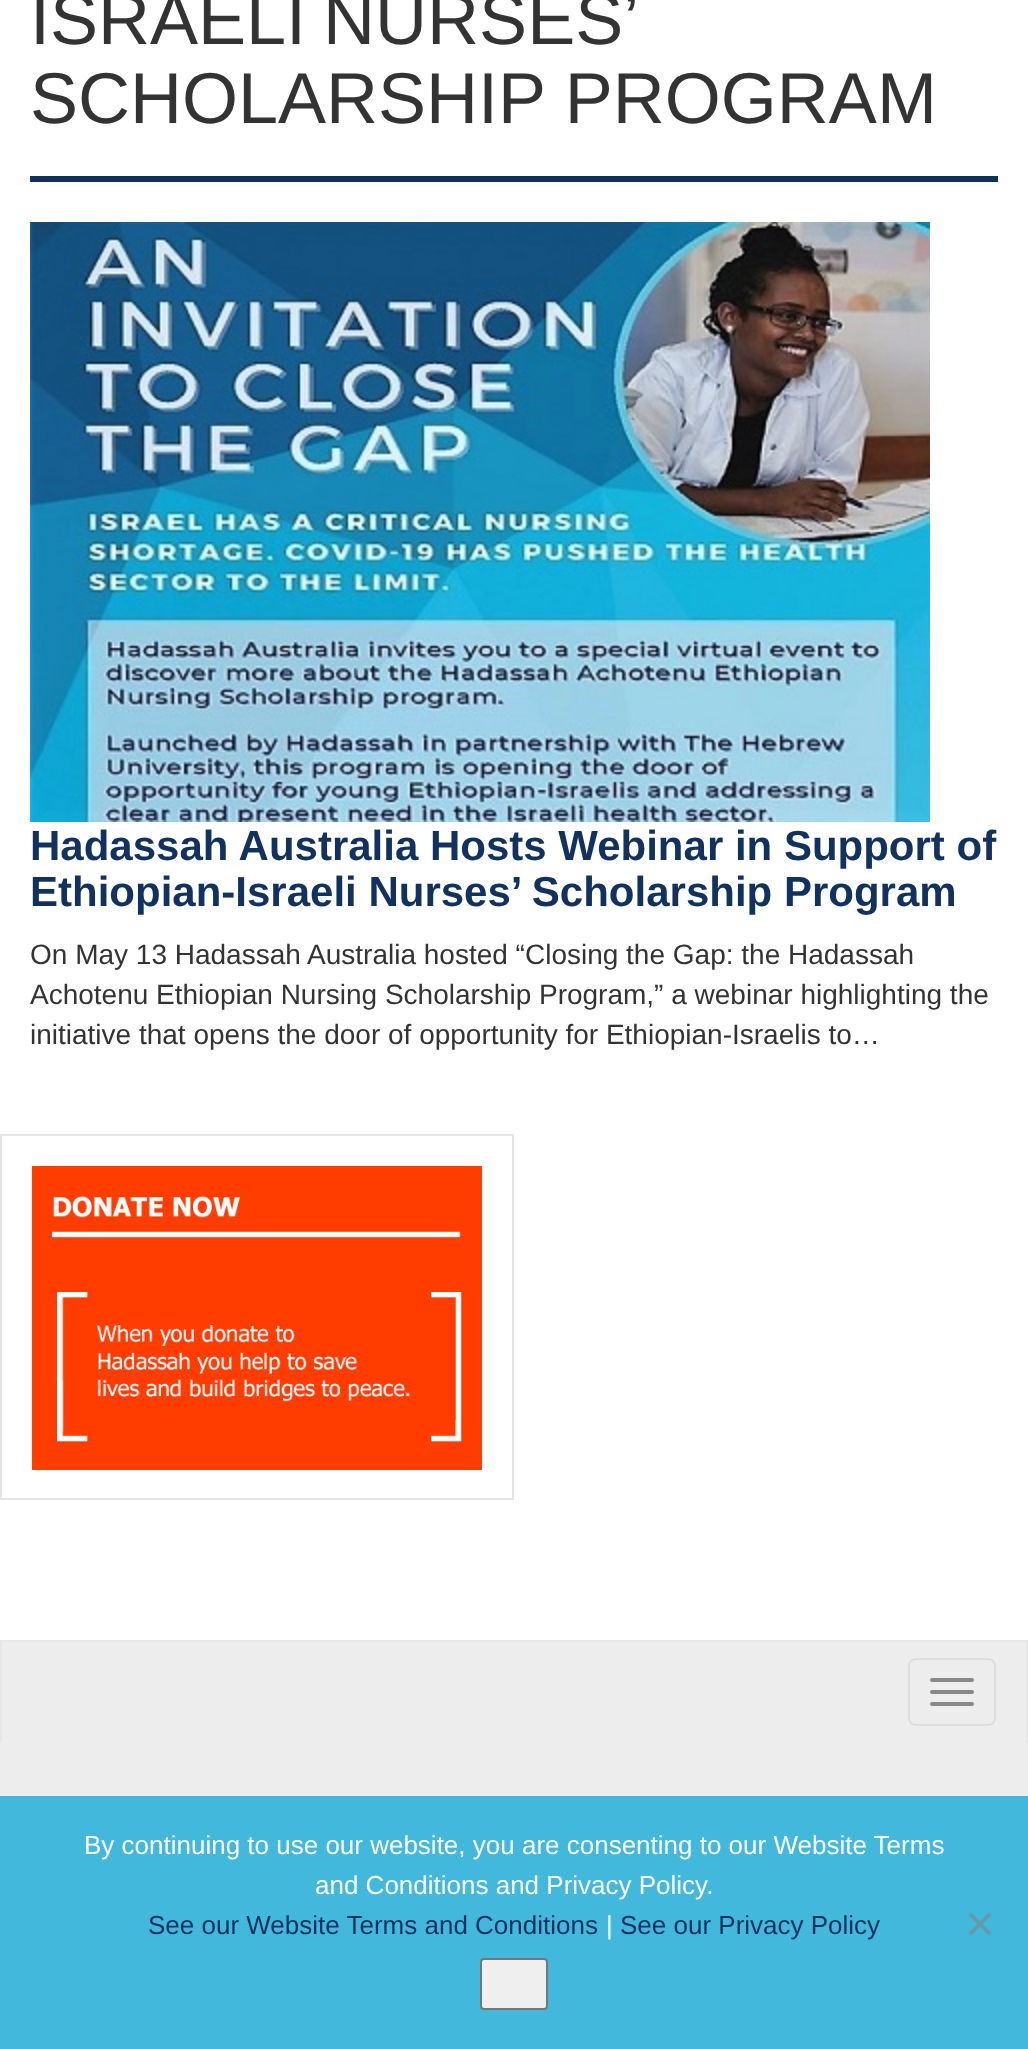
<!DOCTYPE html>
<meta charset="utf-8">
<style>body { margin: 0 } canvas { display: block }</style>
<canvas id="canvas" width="1028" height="2049"></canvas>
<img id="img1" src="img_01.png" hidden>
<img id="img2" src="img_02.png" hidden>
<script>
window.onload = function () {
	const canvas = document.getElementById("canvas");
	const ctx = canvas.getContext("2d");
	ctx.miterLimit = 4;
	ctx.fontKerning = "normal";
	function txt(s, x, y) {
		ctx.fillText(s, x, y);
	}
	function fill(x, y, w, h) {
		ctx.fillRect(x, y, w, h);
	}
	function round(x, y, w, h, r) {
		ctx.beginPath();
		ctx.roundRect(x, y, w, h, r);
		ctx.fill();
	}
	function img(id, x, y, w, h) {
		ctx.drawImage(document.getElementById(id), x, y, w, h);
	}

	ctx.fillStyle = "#FFFFFF";
	fill(0, 0, 1028, 2049);
	ctx.fillStyle = "#11315F";
	fill(30, 176, 968, 6);
	img("img1", 30, 222, 900, 600);
	ctx.strokeStyle = "#E5E5E5";
	ctx.lineWidth = 2;
	ctx.strokeRect(1, 1135, 512, 364);
	img("img2", 32, 1166, 450, 304);
	ctx.fillStyle = "#EDEDED";
	fill(0, 1642, 1028, 154);
	ctx.fillStyle = "#E7E7E7";
	fill(0, 1640, 1028, 2);
	fill(1026, 1640, 2, 102);
	fill(0, 1640, 2, 102);
	ctx.beginPath();
	ctx.roundRect(909, 1659, 86, 66, 7);
	ctx.strokeStyle = "#DDDDDD";
	ctx.stroke();
	ctx.fillStyle = "#888888";
	round(930, 1678, 44, 4, 2);
	round(930, 1690, 44, 4, 2);
	round(930, 1702, 44, 4, 2);
	ctx.fillStyle = "#42B8DD";
	fill(0, 1796, 1028, 253);
	ctx.fillStyle = "#619CAF";
	ctx.beginPath();
	ctx.moveTo(989, 1912);
	ctx.lineTo(992, 1915);
	ctx.lineTo(971, 1936);
	ctx.lineTo(968, 1933);
	ctx.closePath();
	ctx.fill();
	ctx.beginPath();
	ctx.moveTo(968, 1915);
	ctx.lineTo(971, 1912);
	ctx.lineTo(992, 1933);
	ctx.lineTo(989, 1936);
	ctx.closePath();
	ctx.fill();
	ctx.fillStyle = "#EFEFEF";
	ctx.beginPath();
	ctx.roundRect(481, 1959, 66, 50, 3);
	ctx.fill();
	ctx.strokeStyle = "#767676";
	ctx.stroke();
	ctx.wordSpacing = "-3px";
	ctx.font = "72px Liberation Sans";
	ctx.fillStyle = "#333333";
	txt("ISRAELI NURSES’", 30, 44);
	ctx.wordSpacing = "0px";
	txt("SCHOLARSHIP PROGRAM", 30, 123);
	ctx.font = "bold 42px Liberation Sans";
	ctx.fillStyle = "#11315F";
	txt("Hadassah Australia Hosts Webinar in Support of", 30, 860);
	txt("Ethiopian-Israeli Nurses’ Scholarship Program", 30, 906);
	ctx.font = "28px Liberation Sans";
	ctx.fillStyle = "#333333";
	txt("On May 13 Hadassah Australia hosted “Closing the Gap: the Hadassah", 30, 964);
	txt("Achotenu Ethiopian Nursing Scholarship Program,” a webinar highlighting the", 30, 1004);
	txt("initiative that opens the door of opportunity for Ethiopian-Israelis to…", 30, 1044);
	ctx.font = "26px Liberation Sans";
	ctx.fillStyle = "#FFFFFF";
	txt("By continuing to use our website, you are consenting to our Website Terms", 84, 1854);
	txt("and Conditions and Privacy Policy.", 315, 1894);
	ctx.fillStyle = "#11315F";
	txt("See our Website Terms and Conditions", 148, 1934);
	ctx.fillStyle = "#FFFFFF";
	txt("|", 606, 1934);
	ctx.fillStyle = "#11315F";
	txt("See our Privacy Policy", 620, 1934);
};
</script>
